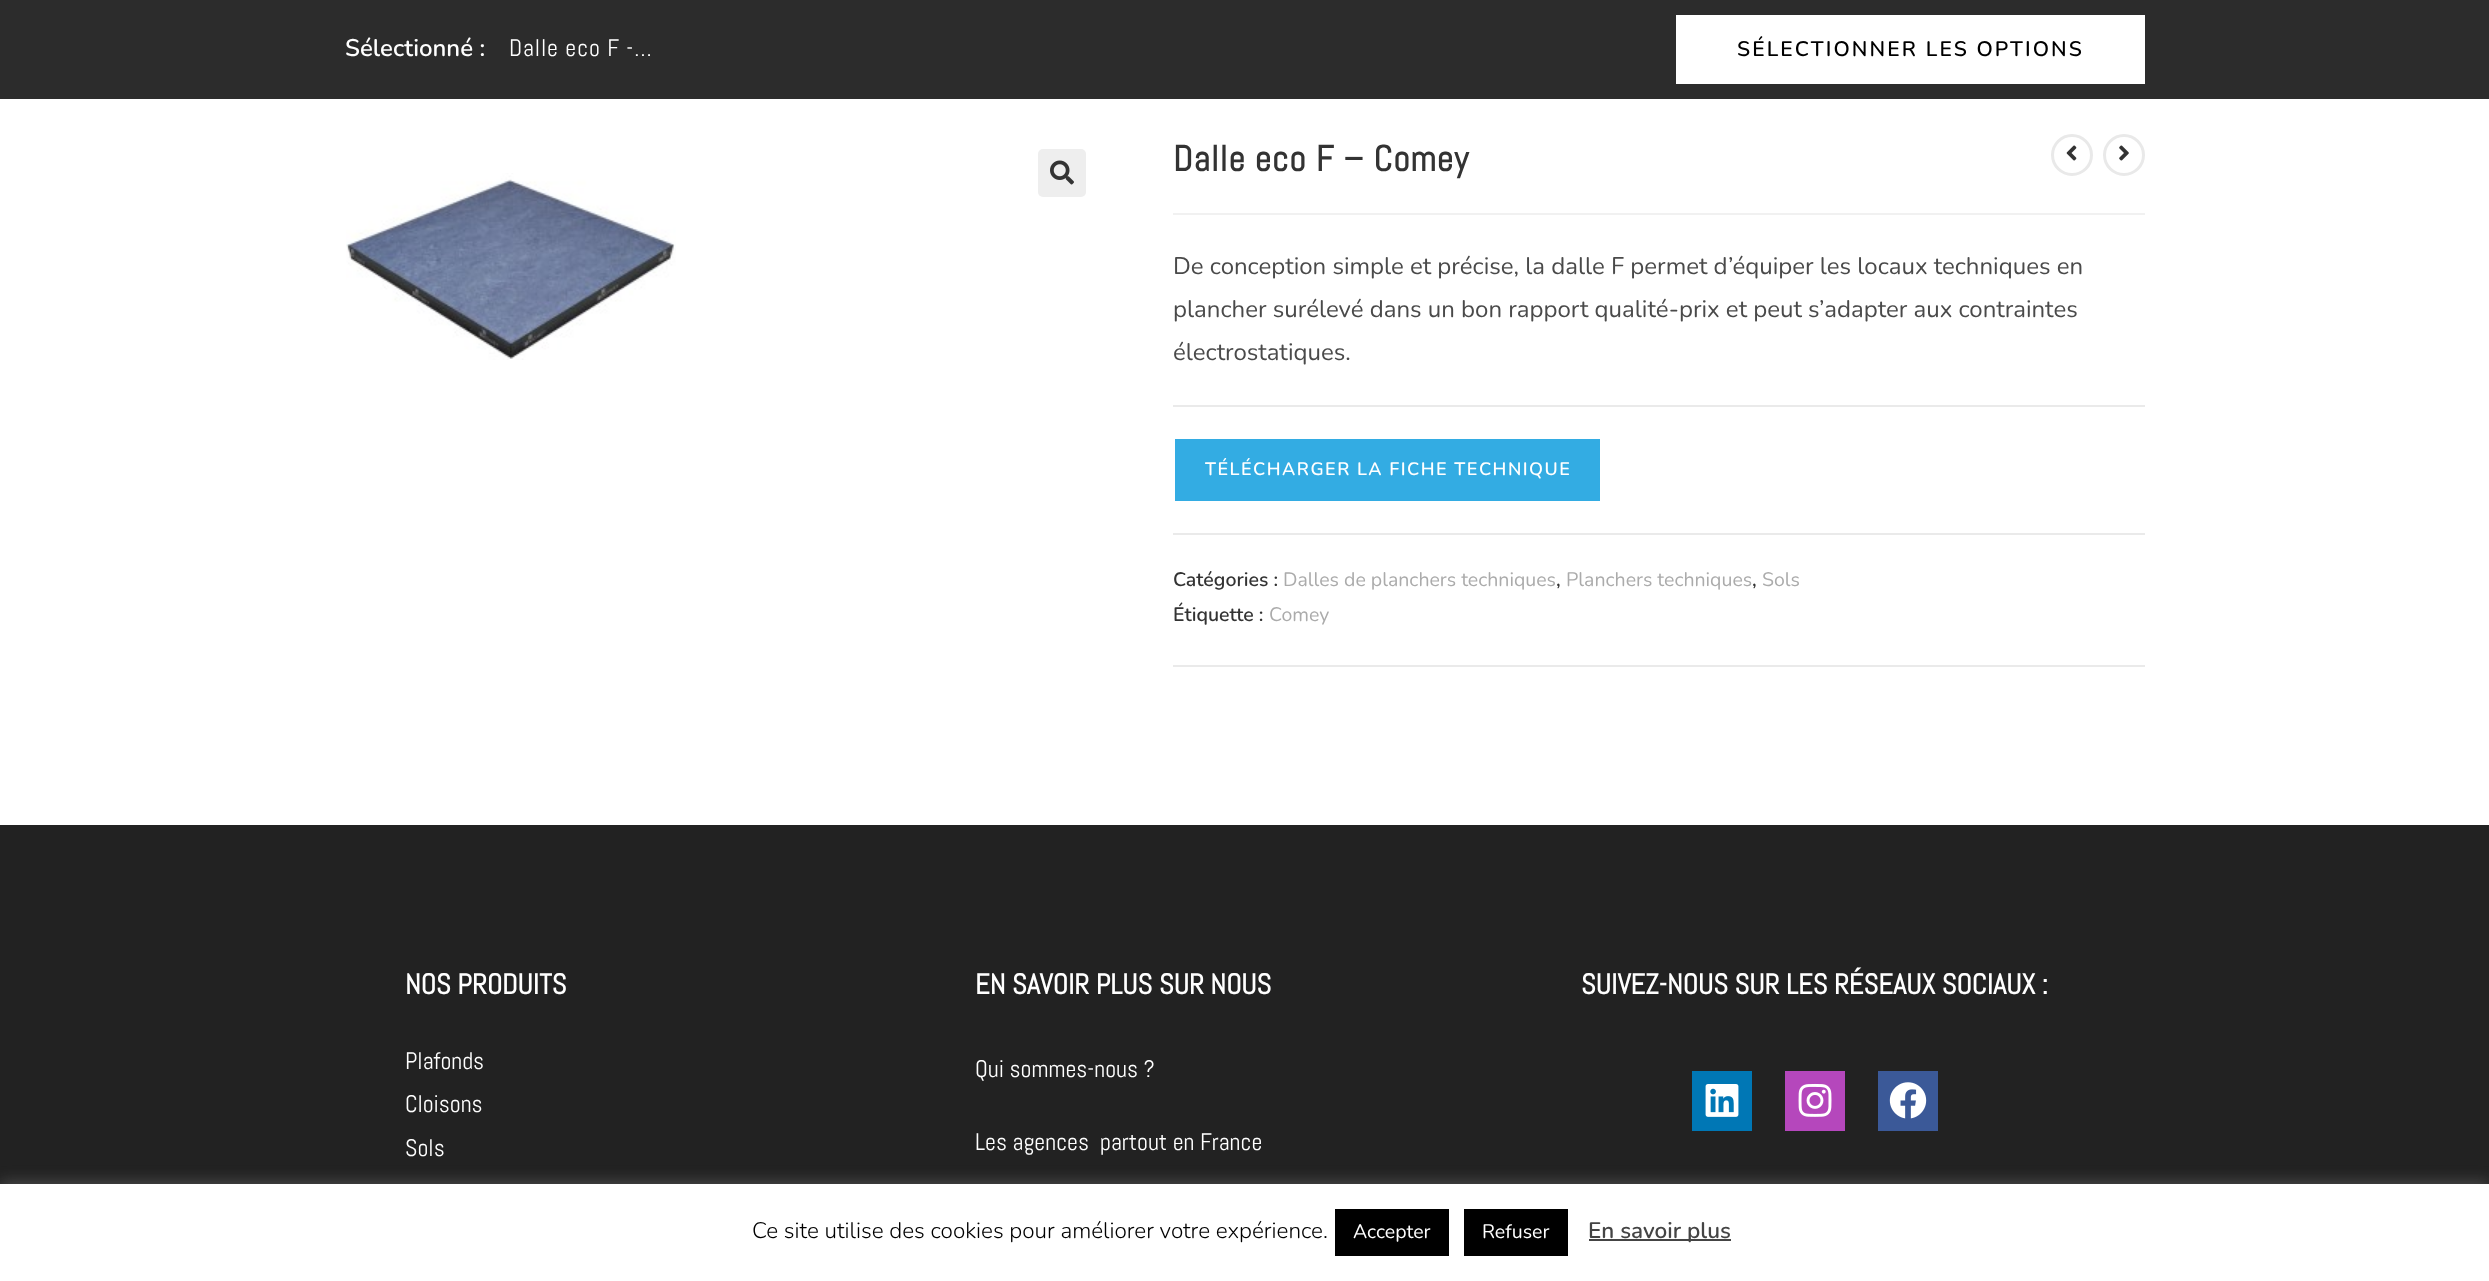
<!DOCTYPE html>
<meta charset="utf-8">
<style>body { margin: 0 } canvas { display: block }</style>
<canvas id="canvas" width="2489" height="1281"></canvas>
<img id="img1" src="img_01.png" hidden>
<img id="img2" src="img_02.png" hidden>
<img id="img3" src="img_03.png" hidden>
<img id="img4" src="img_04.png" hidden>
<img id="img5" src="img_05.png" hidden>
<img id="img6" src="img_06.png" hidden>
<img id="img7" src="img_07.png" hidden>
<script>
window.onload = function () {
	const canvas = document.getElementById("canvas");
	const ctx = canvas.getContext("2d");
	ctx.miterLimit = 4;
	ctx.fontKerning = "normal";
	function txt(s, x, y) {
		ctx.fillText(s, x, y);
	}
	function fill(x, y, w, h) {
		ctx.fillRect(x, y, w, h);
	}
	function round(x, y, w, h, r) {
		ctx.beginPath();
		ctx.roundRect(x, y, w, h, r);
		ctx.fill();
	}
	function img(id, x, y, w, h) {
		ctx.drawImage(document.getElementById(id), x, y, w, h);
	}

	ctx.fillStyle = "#FFFFFF";
	fill(0, 0, 2489, 1281);
	ctx.fillStyle = "#2C2C2C";
	fill(0, 0, 2489, 99);
	ctx.fillStyle = "#FFFFFF";
	fill(1676, 15, 469, 69);
	img("img1", 346, 173, 330, 187);
	ctx.fillStyle = "#EEEEEE";
	round(1038, 149, 48, 48, 5);
	img("img2", 1050, 160, 24, 25);
	ctx.fillStyle = "#F1F1F1";
	fill(1173, 213, 972, 2);
	ctx.fillStyle = "#EAEAEA";
	fill(1173, 405, 972, 2);
	fill(1173, 533, 972, 2);
	ctx.fillStyle = "#33ACE3";
	fill(1175, 439, 425, 62);
	ctx.fillStyle = "#EAEAEA";
	fill(1173, 665, 972, 2);
	ctx.beginPath();
	ctx.arc(2072, 155, 19.5, 0, Math.PI * 2);
	ctx.strokeStyle = "#E9E9E9";
	ctx.lineWidth = 3;
	ctx.stroke();
	img("img3", 2066, 145, 11, 16);
	ctx.beginPath();
	ctx.arc(2124, 155, 19.5, 0, Math.PI * 2);
	ctx.stroke();
	img("img4", 2119, 145, 10, 16);
	ctx.fillStyle = "#222222";
	fill(0, 825, 2489, 359);
	ctx.fillStyle = "#0077B5";
	fill(1692, 1071, 60, 60);
	img("img5", 1705, 1084, 34, 33);
	ctx.fillStyle = "#B547BC";
	fill(1785, 1071, 60, 60);
	img("img6", 1798, 1083, 34, 34);
	ctx.fillStyle = "#3B5998";
	fill(1878, 1071, 60, 60);
	img("img7", 1889, 1082, 38, 37);
	ctx.fillStyle = "rgba(172, 171, 171, 0.3)";
	ctx.filter = "blur(7.5px)";
	ctx.beginPath();
	ctx.rect(0, 1182, 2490, 98);
	ctx.fill();
	ctx.filter = "none";
	ctx.fillStyle = "#FFFFFF";
	fill(0, 1184, 2489, 97);
	ctx.fillStyle = "#000000";
	fill(1335, 1209, 114, 47);
	fill(1464, 1209, 104, 47);
	ctx.fillStyle = "#444444";
	fill(1589, 1239, 142, 2);
	ctx.font = "600 24px Nunito";
	ctx.fillStyle = "#FFFFFF";
	txt("Sélectionné :", 345, 56);
	ctx.letterSpacing = "0.9px";
	ctx.font = "24px Abel";
	txt("Dalle eco F -…", 509, 56);
	ctx.letterSpacing = "2.1px";
	ctx.font = "600 21px Nunito";
	ctx.fillStyle = "#000000";
	txt("SÉLECTIONNER LES OPTIONS", 1737, 56);
	ctx.letterSpacing = "0.9px";
	ctx.font = "bold 36px Abel";
	ctx.fillStyle = "#333333";
	txt("Dalle eco F – Comey", 1173, 171);
	ctx.letterSpacing = "0px";
	ctx.font = "24px Nunito";
	ctx.fillStyle = "#4A4A4A";
	txt("De conception simple et précise, la dalle F permet d’équiper les locaux techniques en", 1173, 274);
	txt("plancher surélevé dans un bon rapport qualité-prix et peut s’adapter aux contraintes", 1173, 317);
	txt("électrostatiques.", 1173, 360);
	ctx.letterSpacing = "1.5px";
	ctx.font = "600 18px Nunito";
	ctx.fillStyle = "#FFFFFF";
	txt("TÉLÉCHARGER LA FICHE TECHNIQUE", 1205, 475);
	ctx.letterSpacing = "0px";
	ctx.font = "600 19.5px Nunito";
	ctx.fillStyle = "#333333";
	txt("Catégories :", 1173, 586);
	ctx.font = "19.5px Nunito";
	ctx.fillStyle = "#ABABAB";
	txt("Dalles de planchers techniques", 1283, 586);
	ctx.font = "600 19.5px Nunito";
	ctx.fillStyle = "#333333";
	txt(",", 1556, 586);
	ctx.font = "19.5px Nunito";
	ctx.fillStyle = "#ABABAB";
	txt("Planchers techniques", 1566, 586);
	ctx.font = "600 19.5px Nunito";
	ctx.fillStyle = "#333333";
	txt(",", 1752, 586);
	ctx.font = "19.5px Nunito";
	ctx.fillStyle = "#ABABAB";
	txt("Sols", 1762, 586);
	ctx.font = "600 19.5px Nunito";
	ctx.fillStyle = "#333333";
	txt("Étiquette :", 1173, 621);
	ctx.font = "19.5px Nunito";
	ctx.fillStyle = "#ABABAB";
	txt("Comey", 1269, 621);
	ctx.font = "bold 28.5px Abel";
	ctx.fillStyle = "#FFFFFF";
	txt("NOS PRODUITS", 405, 994);
	ctx.font = "24px Abel";
	txt("Plafonds", 405, 1069);
	txt("Cloisons", 405, 1112);
	txt("Sols", 405, 1156);
	ctx.font = "bold 28.5px Abel";
	txt("EN SAVOIR PLUS SUR NOUS", 975, 994);
	ctx.font = "24px Abel";
	txt("Qui sommes-nous ?", 975, 1077);
	txt("Les agences  partout en France", 975, 1150);
	ctx.font = "bold 28.5px Abel";
	txt("SUIVEZ-NOUS SUR LES RÉSEAUX SOCIAUX :", 1581, 994);
	ctx.font = "300 22.5px Nunito";
	ctx.fillStyle = "#000000";
	txt("Ce site utilise des cookies pour améliorer votre expérience.", 752, 1238);
	ctx.font = "19.5px Nunito";
	ctx.fillStyle = "#FFFFFF";
	txt("Accepter", 1353, 1238);
	txt("Refuser", 1482, 1238);
	ctx.font = "600 22.5px Nunito";
	ctx.fillStyle = "#444444";
	txt("En savoir plus", 1588, 1238);
};
</script>
